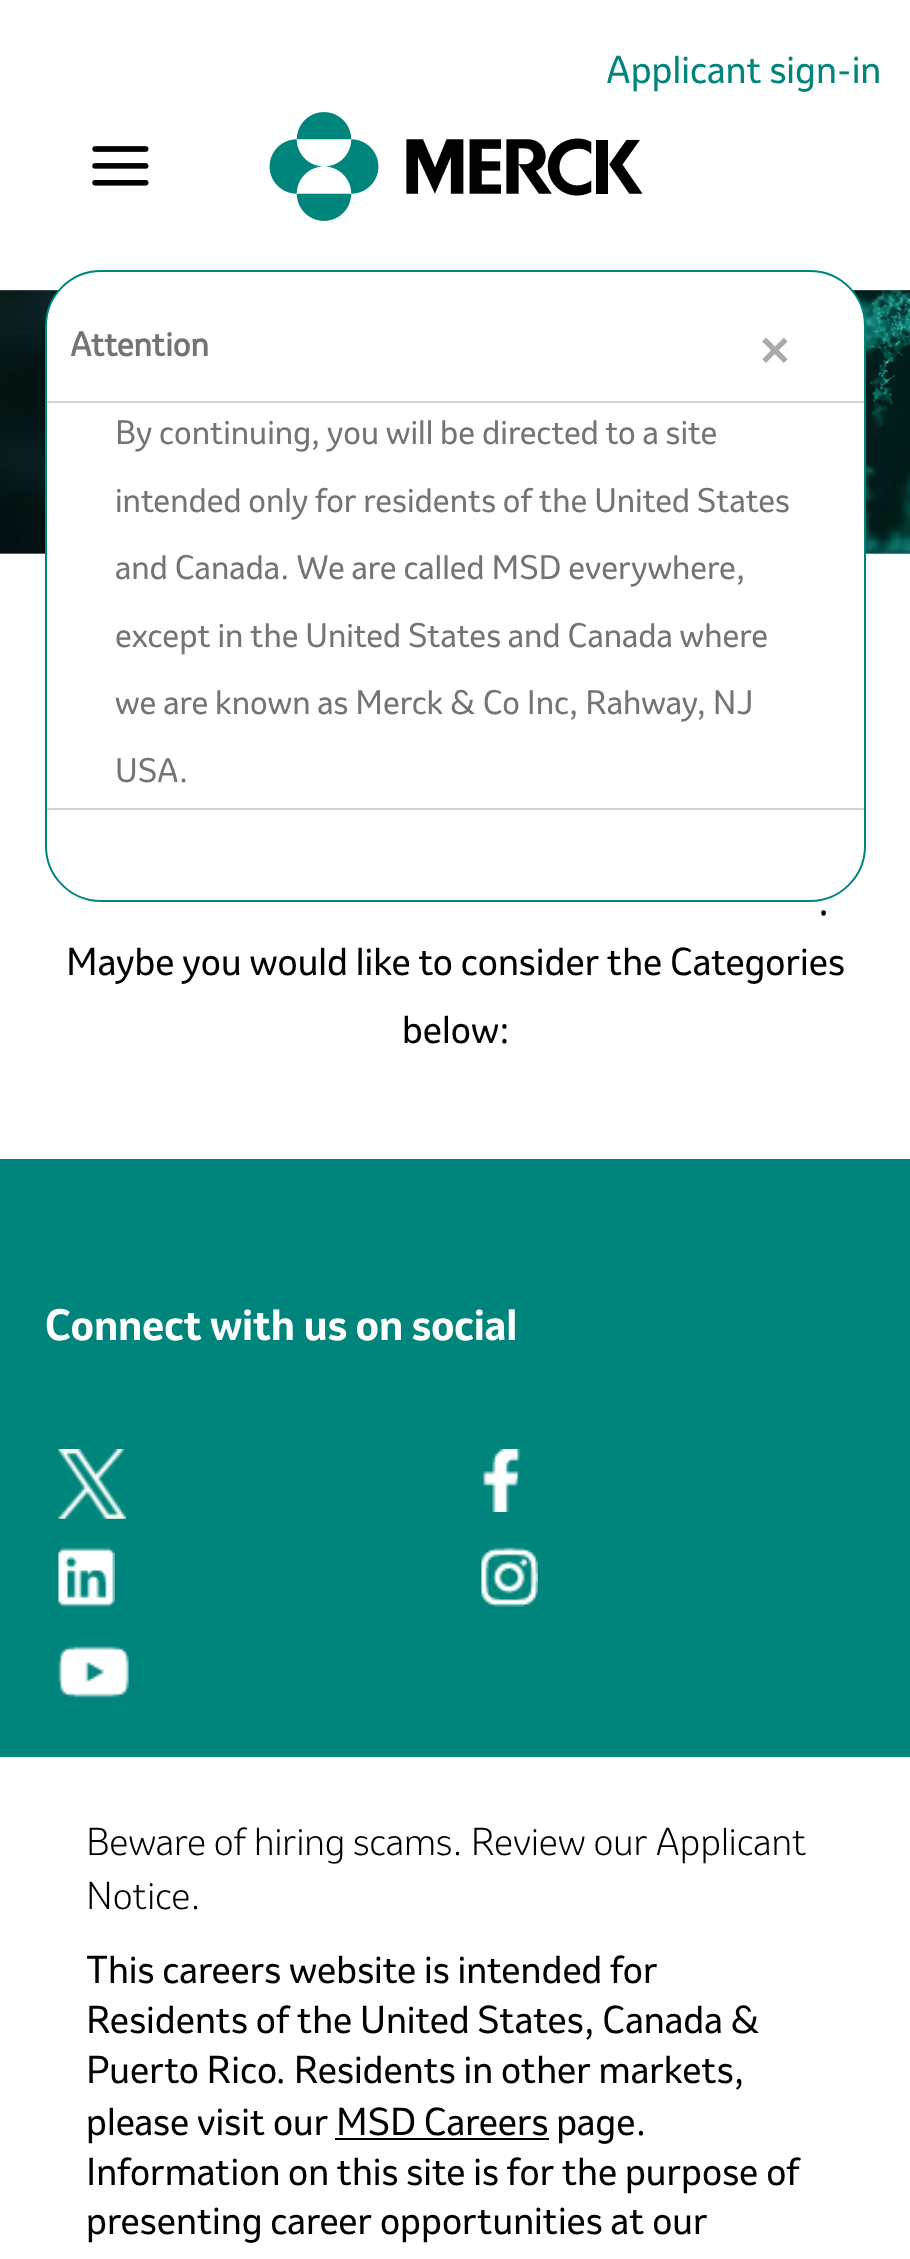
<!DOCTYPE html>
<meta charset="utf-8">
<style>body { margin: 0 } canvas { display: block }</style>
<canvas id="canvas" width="910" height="2259"></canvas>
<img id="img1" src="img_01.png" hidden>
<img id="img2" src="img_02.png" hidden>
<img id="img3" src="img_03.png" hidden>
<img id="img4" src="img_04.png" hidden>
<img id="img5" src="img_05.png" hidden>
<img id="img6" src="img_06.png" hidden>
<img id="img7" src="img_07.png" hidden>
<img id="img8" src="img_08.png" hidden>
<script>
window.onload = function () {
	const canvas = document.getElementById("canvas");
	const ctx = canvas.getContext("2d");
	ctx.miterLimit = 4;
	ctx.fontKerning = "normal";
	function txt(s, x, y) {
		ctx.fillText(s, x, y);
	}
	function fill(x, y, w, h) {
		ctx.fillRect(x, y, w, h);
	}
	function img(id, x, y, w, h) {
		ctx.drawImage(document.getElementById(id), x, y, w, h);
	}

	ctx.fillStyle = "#FFFFFF";
	fill(0, 0, 910, 2259);
	img("img1", 92, 146, 57, 40);
	img("img2", 269, 112, 374, 109);
	ctx.fillStyle = "#B3B3B3";
	fill(0, 290, 910, 264);
	img("img3", 0, 290, 910, 264);
	ctx.fillStyle = "#FFFFFF";
	ctx.beginPath();
	ctx.roundRect(46, 271, 819, 630, 55);
	ctx.fill();
	ctx.strokeStyle = "#00857C";
	ctx.lineWidth = 2;
	ctx.stroke();
	ctx.fillStyle = "#D2D2D2";
	fill(47, 401, 817, 2);
	fill(47, 808, 817, 2);
	ctx.fillStyle = "#00857C";
	fill(0, 1159, 910, 598);
	img("img4", 58, 1449, 68, 70);
	img("img5", 483, 1449, 38, 63);
	img("img6", 58, 1547, 57, 60);
	img("img7", 481, 1547, 57, 60);
	img("img8", 58, 1646, 71, 52);
	ctx.fillStyle = "#000000";
	fill(335, 2138, 214, 2);
	ctx.font = "36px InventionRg";
	ctx.fillStyle = "#00857C";
	txt("Applicant sign-in", 606, 83);
	ctx.font = "bold 31.5px InventionRg";
	ctx.fillStyle = "#747474";
	txt("Attention", 70, 356);
	ctx.font = "68px InventionRg";
	ctx.fillStyle = "#AAAAAA";
	txt("×", 753, 376);
	ctx.font = "31.5px InventionRg";
	ctx.fillStyle = "#747474";
	txt("By continuing, you will be directed to a site", 115, 444);
	txt("intended only for residents of the United States", 115, 512);
	txt("and Canada. We are called MSD everywhere,", 115, 579);
	txt("except in the United States and Canada where", 115, 647);
	txt("we are known as Merck & Co Inc, Rahway, NJ", 115, 714);
	txt("USA.", 115, 782);
	ctx.font = "300 52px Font";
	ctx.fillStyle = "#000000";
	txt(".", 816, 915);
	ctx.font = "36px InventionRg";
	txt("Maybe you would like to consider the Categories", 66, 975);
	txt("below:", 402, 1043);
	ctx.font = "bold 40.5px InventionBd";
	ctx.fillStyle = "#FFFFFF";
	txt("Connect with us on social", 45, 1340);
	ctx.font = "300 36px Font";
	ctx.fillStyle = "#000000";
	txt("Beware of hiring scams. Review our Applicant", 86, 1855);
	txt("Notice.", 86, 1909);
	ctx.font = "36px InventionRg";
	txt("This careers website is intended for", 86, 1983);
	txt("Residents of the United States, Canada &", 86, 2033);
	txt("Puerto Rico. Residents in other markets,", 86, 2083);
	txt("please visit our MSD Careers page.", 86, 2135);
	txt("Information on this site is for the purpose of", 86, 2185);
	txt("presenting career opportunities at our", 86, 2234);
};
</script>
